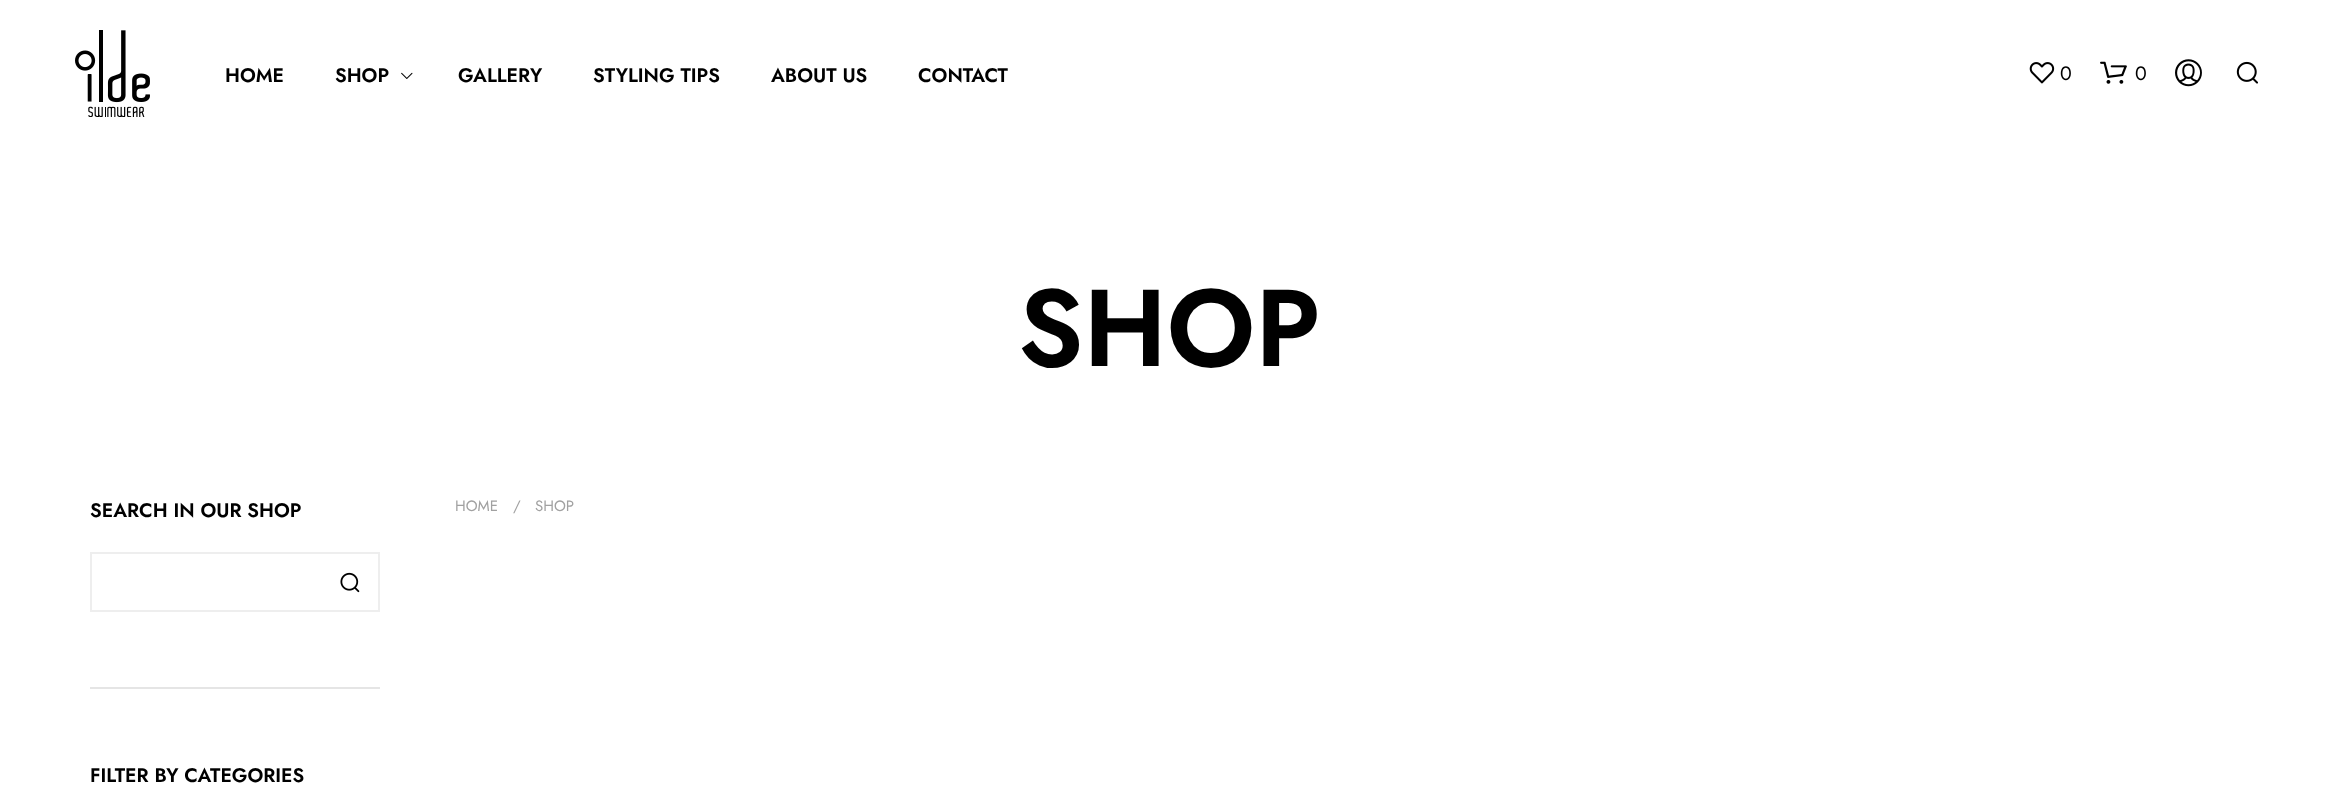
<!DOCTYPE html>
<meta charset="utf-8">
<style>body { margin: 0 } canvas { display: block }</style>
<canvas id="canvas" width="2338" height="790"></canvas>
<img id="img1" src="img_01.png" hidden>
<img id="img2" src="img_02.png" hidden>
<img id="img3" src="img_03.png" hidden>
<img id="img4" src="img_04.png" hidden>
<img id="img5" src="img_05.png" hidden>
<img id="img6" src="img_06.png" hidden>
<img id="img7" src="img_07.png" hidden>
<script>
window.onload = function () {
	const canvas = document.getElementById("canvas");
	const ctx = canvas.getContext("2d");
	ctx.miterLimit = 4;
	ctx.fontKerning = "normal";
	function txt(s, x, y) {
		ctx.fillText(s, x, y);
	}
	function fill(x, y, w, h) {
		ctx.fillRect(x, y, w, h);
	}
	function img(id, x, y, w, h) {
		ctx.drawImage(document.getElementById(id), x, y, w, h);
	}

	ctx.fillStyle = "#FFFFFF";
	fill(0, 0, 2338, 790);
	img("img1", 75, 30, 75, 87);
	img("img2", 401, 72, 12, 7);
	img("img3", 2029, 62, 26, 22);
	img("img4", 2100, 61, 27, 23);
	img("img5", 2175, 59, 27, 28);
	img("img6", 2236, 61, 22, 23);
	ctx.fillStyle = "#E5E5E5";
	fill(90, 687, 290, 2);
	ctx.strokeStyle = "#EEEEEE";
	ctx.lineWidth = 2;
	ctx.strokeRect(91, 553, 288, 58);
	img("img7", 340, 572, 20, 21);
	ctx.font = "600 19.5px Jost";
	ctx.fillStyle = "#000000";
	txt("HOME", 225, 82);
	txt("SHOP", 335, 82);
	txt("GALLERY", 458, 82);
	txt("STYLING TIPS", 593, 82);
	txt("ABOUT US", 771, 82);
	txt("CONTACT", 918, 82);
	ctx.font = "19.5px Jost";
	txt("0", 2060, 80);
	txt("0", 2135, 80);
	ctx.font = "600 109px Jost";
	txt("SHOP", 1018, 366);
	ctx.font = "600 19.5px Jost";
	txt("SEARCH IN OUR SHOP", 90, 517);
	txt("FILTER BY CATEGORIES", 90, 782);
	ctx.font = "15px Jost";
	ctx.fillStyle = "#A1A1A1";
	txt("HOME", 455, 511);
	txt("/", 513, 511);
	txt("SHOP", 535, 511);
};
</script>
